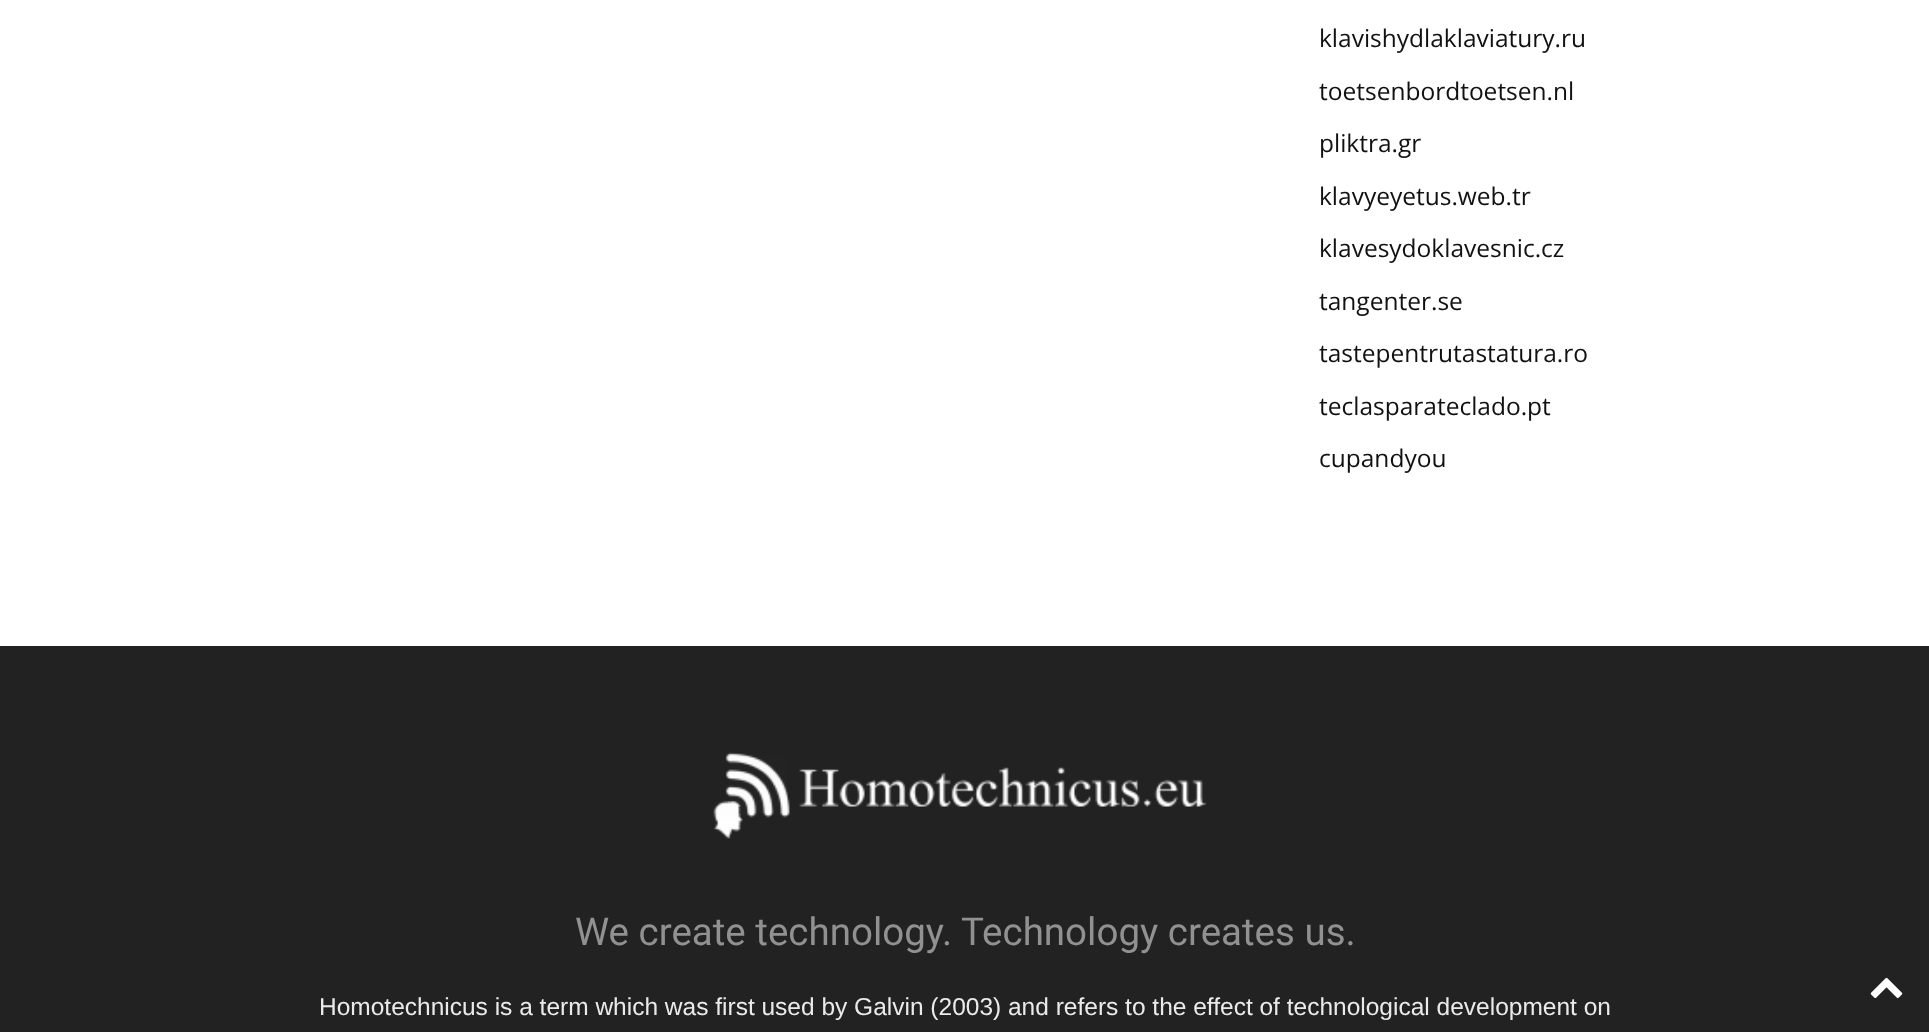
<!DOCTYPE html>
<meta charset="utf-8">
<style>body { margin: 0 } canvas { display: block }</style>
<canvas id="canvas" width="1929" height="1032"></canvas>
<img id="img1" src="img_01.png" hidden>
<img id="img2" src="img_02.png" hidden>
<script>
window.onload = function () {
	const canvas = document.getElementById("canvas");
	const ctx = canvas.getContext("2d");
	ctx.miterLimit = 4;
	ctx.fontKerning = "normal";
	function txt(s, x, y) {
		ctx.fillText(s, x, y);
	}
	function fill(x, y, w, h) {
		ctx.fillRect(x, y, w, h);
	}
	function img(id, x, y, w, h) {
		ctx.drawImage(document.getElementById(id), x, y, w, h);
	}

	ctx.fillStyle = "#FFFFFF";
	fill(0, 0, 1929, 1032);
	ctx.fillStyle = "#222222";
	fill(0, 646, 1929, 386);
	img("img1", 713, 752, 494, 87);
	img("img2", 1870, 977, 33, 21);
	ctx.font = "24.5px Open Sans";
	ctx.fillStyle = "#111111";
	txt("klavishydlaklaviatury.ru", 1319, 47);
	txt("toetsenbordtoetsen.nl", 1319, 100);
	txt("pliktra.gr", 1319, 152);
	txt("klavyeyetus.web.tr", 1319, 205);
	txt("klavesydoklavesnic.cz", 1319, 257);
	txt("tangenter.se", 1319, 310);
	txt("tastepentrutastatura.ro", 1319, 362);
	txt("teclasparateclado.pt", 1319, 415);
	txt("cupandyou", 1319, 467);
	ctx.font = "38.5px Roboto";
	ctx.fillStyle = "#919191";
	txt("We create technology. Technology creates us.", 575, 945);
	ctx.font = "24.5px Liberation Sans";
	ctx.fillStyle = "#EAEAEA";
	txt("Homotechnicus is a term which was first used by Galvin (2003) and refers to the effect of technological development on", 319, 1015);
};
</script>
